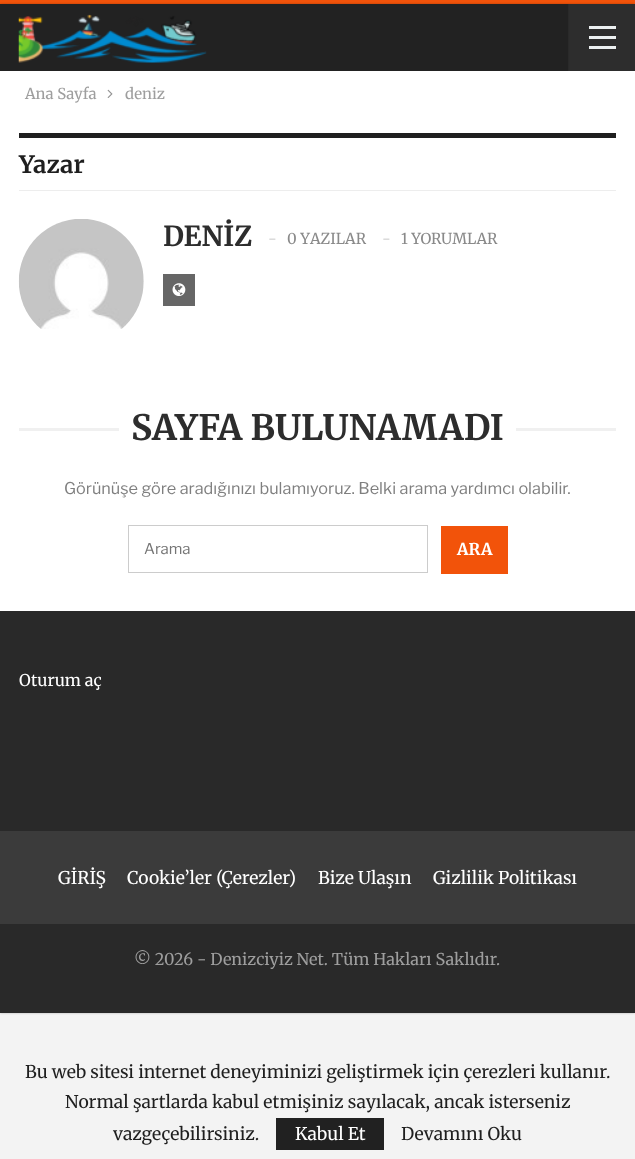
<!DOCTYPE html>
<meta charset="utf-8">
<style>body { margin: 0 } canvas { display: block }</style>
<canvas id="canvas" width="635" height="1159"></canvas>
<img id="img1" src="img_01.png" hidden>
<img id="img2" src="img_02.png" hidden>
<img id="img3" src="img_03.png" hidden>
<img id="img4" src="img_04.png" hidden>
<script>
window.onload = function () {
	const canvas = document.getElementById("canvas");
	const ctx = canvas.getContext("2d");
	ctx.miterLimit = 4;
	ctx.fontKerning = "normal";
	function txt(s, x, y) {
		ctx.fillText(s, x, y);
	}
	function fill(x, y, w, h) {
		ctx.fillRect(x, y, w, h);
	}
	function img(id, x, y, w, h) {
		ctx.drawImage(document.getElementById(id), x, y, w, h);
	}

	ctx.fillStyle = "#F3F3F3";
	fill(0, 0, 635, 1159);
	ctx.fillStyle = "#F2530A";
	fill(0, 0, 635, 4);
	ctx.fillStyle = "rgba(0, 0, 0, 0.27)";
	ctx.filter = "blur(1px)";
	ctx.beginPath();
	ctx.rect(0, 4, 635, 1009);
	ctx.fill();
	ctx.filter = "none";
	ctx.fillStyle = "#FFFFFF";
	fill(0, 71, 635, 540);
	ctx.fillStyle = "#222222";
	fill(0, 4, 568, 67);
	img("img1", 18, 14, 189, 49);
	ctx.fillStyle = "#2D2D2D";
	fill(569, 4, 66, 67);
	ctx.fillStyle = "#2A2A2A";
	fill(568, 4, 1, 67);
	ctx.fillStyle = "#ECF0F1";
	fill(589, 36, 27, 3);
	fill(589, 26, 27, 3);
	fill(589, 46, 27, 3);
	img("img2", 107, 89, 6, 9);
	ctx.fillStyle = "#1F1F1F";
	fill(19, 133, 597, 5);
	ctx.fillStyle = "#EDEDED";
	fill(19, 190, 597, 1);
	img("img3", 18, 219, 126, 110);
	ctx.fillStyle = "#666666";
	fill(163, 274, 32, 32);
	img("img4", 172, 283, 14, 13);
	ctx.fillStyle = "#F0F0F0";
	fill(19, 428, 597, 3);
	ctx.fillStyle = "#FFFFFF";
	fill(119, 428, 397, 3);
	ctx.strokeStyle = "#CCCCCC";
	ctx.strokeRect(128.5, 525.5, 299, 47);
	ctx.fillStyle = "#F2530A";
	fill(441, 526, 67, 48);
	ctx.fillStyle = "#292929";
	fill(0, 611, 635, 402);
	ctx.fillStyle = "#3B3B3B";
	fill(0, 831, 635, 93);
	ctx.fillStyle = "#212121";
	fill(276, 1118, 108, 32);
	ctx.font = "15px Merriweather";
	ctx.fillStyle = "#9E9E9E";
	txt("Ana Sayfa", 25, 99);
	txt("deniz", 125, 99);
	ctx.font = "bold 24px Merriweather";
	ctx.fillStyle = "#1F1F1F";
	txt("Yazar", 19, 173);
	ctx.font = "bold 27.5px Merriweather";
	ctx.fillStyle = "#2D2D2D";
	txt("DENİZ", 163, 246);
	ctx.font = "15px Merriweather";
	ctx.fillStyle = "#D0D0D0";
	txt("-", 268, 244);
	ctx.fillStyle = "#8A8A8A";
	txt("0 YAZILAR", 287, 244);
	ctx.fillStyle = "#D0D0D0";
	txt("-", 382, 244);
	ctx.fillStyle = "#8A8A8A";
	txt("1 YORUMLAR", 401, 244);
	ctx.font = "bold 35px Merriweather";
	ctx.fillStyle = "#2D2D2D";
	txt("SAYFA BULUNAMADI", 131, 440);
	ctx.font = "100 16.25px Libre Franklin";
	ctx.fillStyle = "#7F7F7F";
	txt("Görünüşe göre aradığınızı bulamıyoruz. Belki arama yardımcı olabilir.", 64, 494);
	ctx.font = "100 15px Libre Franklin";
	ctx.fillStyle = "#757575";
	txt("Arama", 144, 554);
	ctx.font = "bold 16.25px Merriweather";
	ctx.fillStyle = "#FFFFFF";
	txt("ARA", 457, 555);
	ctx.font = "16.25px Merriweather";
	txt("Oturum aç", 19, 686);
	ctx.font = "17.5px Merriweather";
	txt("GİRİŞ", 58, 884);
	txt("Cookie’ler (Çerezler)", 127, 884);
	txt("Bize Ulaşın", 318, 884);
	txt("Gizlilik Politikası", 433, 884);
	ctx.font = "16.25px Merriweather";
	ctx.fillStyle = "#9E9E9E";
	txt("© 2026 - Denizciyiz Net. Tüm Hakları Saklıdır.", 134, 965);
	ctx.font = "17.5px Merriweather";
	ctx.fillStyle = "#1F1F1F";
	txt("Bu web sitesi internet deneyiminizi geliştirmek için çerezleri kullanır.", 25, 1078);
	txt("Normal şartlarda kabul etmişiniz sayılacak, ancak isterseniz", 65, 1108);
	txt("vazgeçebilirsiniz.", 113, 1140);
	ctx.fillStyle = "#FFFFFF";
	txt("Kabul Et", 295, 1140);
	ctx.fillStyle = "#1F1F1F";
	txt("Devamını Oku", 401, 1140);
};
</script>
